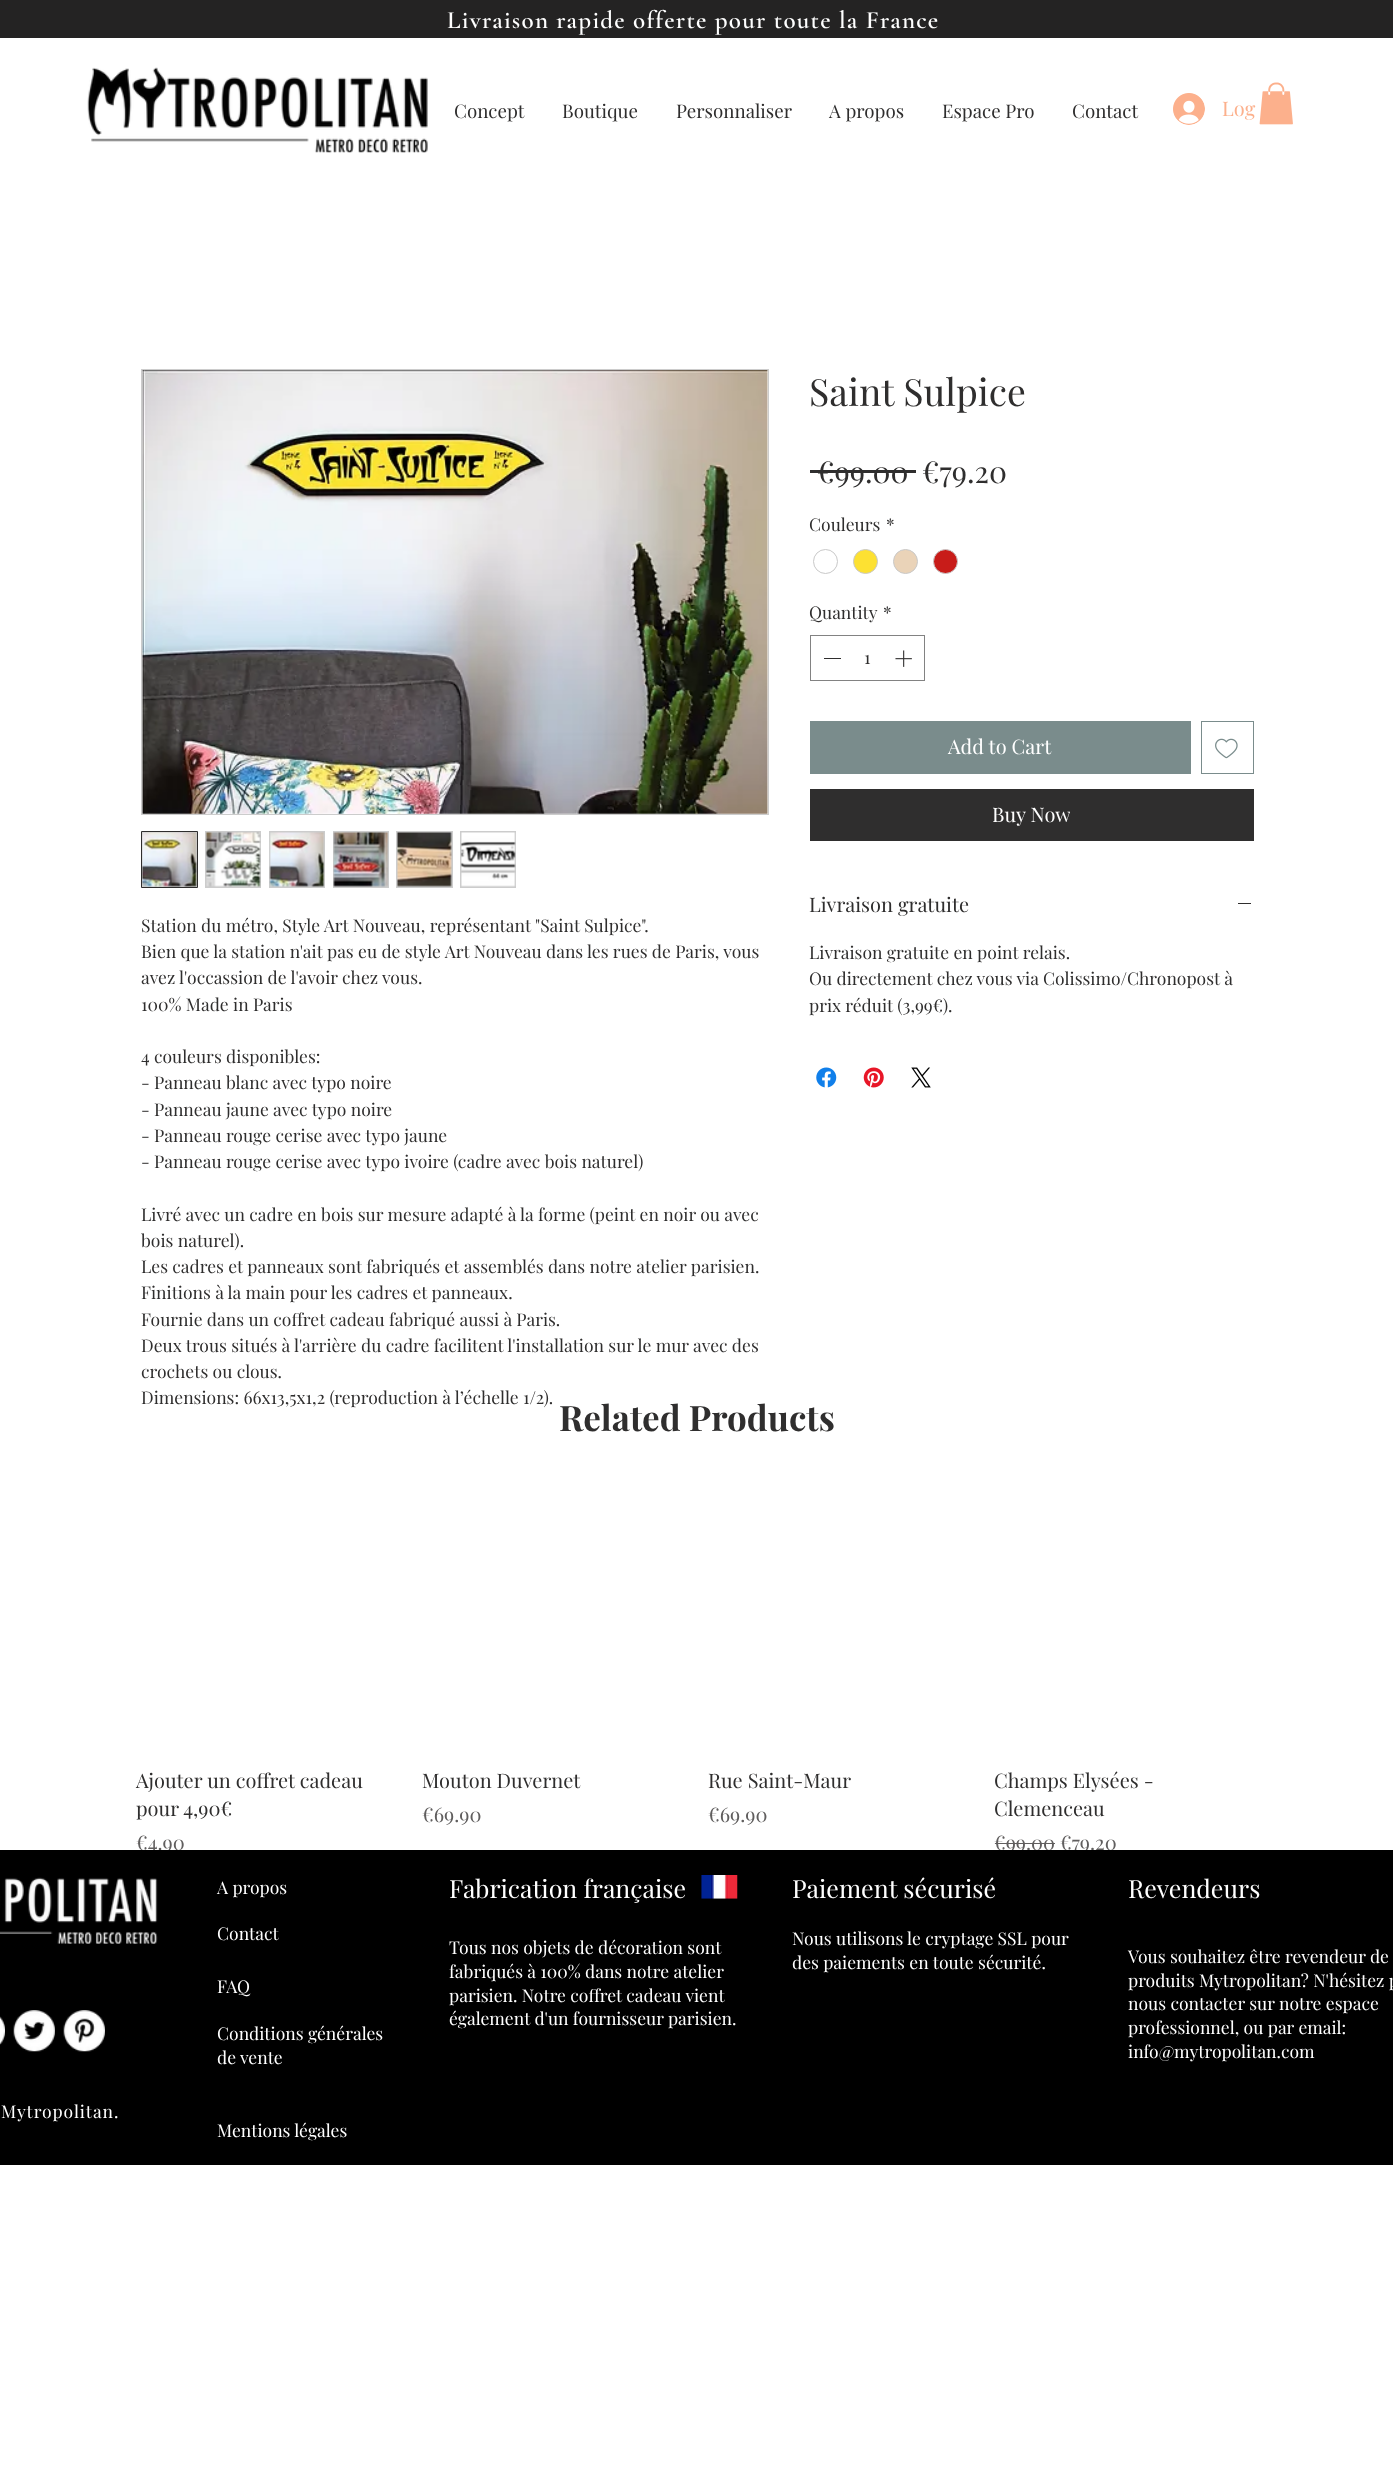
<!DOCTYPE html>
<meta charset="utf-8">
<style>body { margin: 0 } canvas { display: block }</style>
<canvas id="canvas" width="1393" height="2484"></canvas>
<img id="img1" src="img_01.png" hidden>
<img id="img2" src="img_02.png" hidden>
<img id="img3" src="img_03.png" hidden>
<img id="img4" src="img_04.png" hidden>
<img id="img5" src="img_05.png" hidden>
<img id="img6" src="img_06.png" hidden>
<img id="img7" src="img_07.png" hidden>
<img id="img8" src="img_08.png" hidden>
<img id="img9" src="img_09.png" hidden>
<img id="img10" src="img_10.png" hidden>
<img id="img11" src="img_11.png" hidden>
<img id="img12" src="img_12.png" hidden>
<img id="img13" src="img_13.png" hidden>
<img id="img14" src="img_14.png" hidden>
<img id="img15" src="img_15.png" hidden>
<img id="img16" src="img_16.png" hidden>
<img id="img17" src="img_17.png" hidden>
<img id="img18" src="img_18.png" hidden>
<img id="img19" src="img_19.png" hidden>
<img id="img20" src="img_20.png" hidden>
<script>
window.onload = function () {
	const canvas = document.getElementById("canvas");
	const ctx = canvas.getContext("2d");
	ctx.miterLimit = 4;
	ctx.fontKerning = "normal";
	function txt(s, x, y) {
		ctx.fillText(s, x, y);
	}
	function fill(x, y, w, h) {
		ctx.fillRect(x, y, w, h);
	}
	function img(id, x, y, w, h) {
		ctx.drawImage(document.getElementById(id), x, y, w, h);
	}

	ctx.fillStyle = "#FFFFFF";
	fill(0, 0, 1393, 2484);
	ctx.fillStyle = "#242323";
	fill(0, 0, 1393, 38);
	img("img1", 87, 67, 341, 86);
	img("img2", 1173, 93, 32, 32);
	img("img3", 1259, 82, 34, 43);
	ctx.fillStyle = "#2F2E2E";
	fill(810, 470, 106, 3);
	ctx.beginPath();
	ctx.arc(825.5, 561.5, 12, 0, Math.PI * 2);
	ctx.strokeStyle = "#C9C9C9";
	ctx.stroke();
	ctx.fillStyle = "#FDE132";
	ctx.beginPath();
	ctx.arc(865.5, 561.5, 12, 0, Math.PI * 2);
	ctx.fill();
	ctx.stroke();
	ctx.fillStyle = "#EAD3B8";
	ctx.beginPath();
	ctx.arc(905.5, 561.5, 12, 0, Math.PI * 2);
	ctx.fill();
	ctx.stroke();
	ctx.fillStyle = "#C81C19";
	ctx.beginPath();
	ctx.arc(945.5, 561.5, 12, 0, Math.PI * 2);
	ctx.fill();
	ctx.stroke();
	ctx.strokeStyle = "#828282";
	ctx.strokeRect(810.5, 635.5, 114, 45);
	ctx.fillStyle = "#2F2E2E";
	fill(824, 658, 17, 1);
	img("img4", 895, 650, 17, 17);
	ctx.fillStyle = "#7A8C8C";
	fill(810, 721, 381, 53);
	ctx.strokeStyle = "#7A8C8C";
	ctx.strokeRect(1201.5, 721.5, 52, 52);
	img("img5", 1215, 738, 23, 21);
	ctx.fillStyle = "#2F2E2E";
	fill(810, 789, 444, 52);
	fill(1238, 903, 13, 1);
	img("img6", 816, 1067, 21, 21);
	img("img7", 863, 1067, 21, 21);
	img("img8", 911, 1067, 20, 21);
	ctx.strokeStyle = "#CCCCCC";
	ctx.strokeRect(141.5, 369.5, 627, 445);
	img("img9", 142, 370, 626, 444);
	ctx.fillStyle = "#CCCCCC";
	ctx.beginPath();
	ctx.rect(141.5, 831.5, 56, 56);
	ctx.fill();
	ctx.strokeStyle = "#2F2E2E";
	ctx.stroke();
	img("img10", 142, 832, 55, 55);
	fill(205, 831, 56, 57);
	img("img11", 205, 832, 56, 55);
	fill(269, 831, 56, 57);
	img("img12", 269, 832, 56, 55);
	fill(333, 831, 56, 57);
	img("img13", 333, 832, 55, 55);
	fill(396, 831, 57, 57);
	img("img14", 397, 832, 55, 55);
	fill(460, 831, 56, 57);
	img("img15", 460, 832, 56, 55);
	ctx.fillStyle = "#605E5E";
	fill(995, 1843, 60, 1);
	ctx.letterSpacing = "1.25px";
	ctx.font = "600 25px Cormorant Garamond";
	ctx.fillStyle = "#FFFFFF";
	txt("Livraison rapide offerte pour toute la France", 447, 28);
	ctx.letterSpacing = "0px";
	ctx.font = "18.75px Playfair Display";
	ctx.fillStyle = "#2F2E2E";
	txt("Concept", 454, 118);
	txt("Boutique", 562, 118);
	txt("Personnaliser", 676, 118);
	txt("A propos", 829, 118);
	txt("Espace Pro", 942, 118);
	txt("Contact", 1072, 118);
	ctx.font = "20px Playfair Display";
	ctx.fillStyle = "#FCB08C";
	txt("Log", 1222, 116);
	ctx.font = "37.5px Playfair Display";
	ctx.fillStyle = "#2F2E2E";
	txt("Saint Sulpice", 809, 406);
	ctx.font = "30px Playfair Display";
	txt("€99.00", 817, 483);
	txt("€79.20", 922, 483);
	ctx.font = "17.5px Playfair Display";
	txt("Couleurs", 809, 531);
	txt("*", 886, 531);
	txt("Quantity", 809, 619);
	txt("*", 883, 619);
	txt("1", 864, 664);
	ctx.font = "20px Playfair Display";
	ctx.fillStyle = "#FFFFFF";
	txt("Add to Cart", 948, 754);
	ctx.save();
	ctx.beginPath();
	ctx.rect(993, 801, 77, 28);
	ctx.clip();
	txt("Buy Now", 992, 822);
	ctx.restore();
	ctx.fillStyle = "#2F2E2E";
	txt("Livraison gratuite", 809, 912);
	ctx.font = "17.5px Playfair Display";
	txt("Livraison gratuite en point relais.", 809, 959);
	txt("Ou directement chez vous via Colissimo/Chronopost à", 809, 985);
	txt("prix réduit (3,99€).", 809, 1012);
	txt("Station du métro, Style Art Nouveau, représentant \"Saint Sulpice\".", 141, 932);
	txt("Bien que la station n'ait pas eu de style Art Nouveau dans les rues de Paris, vous", 141, 958);
	txt("avez l'occassion de l'avoir chez vous.", 141, 984);
	txt("100% Made in Paris", 141, 1011);
	txt("4 couleurs disponibles:", 141, 1063);
	txt("- Panneau blanc avec typo noire", 141, 1089);
	txt("- Panneau jaune avec typo noire", 141, 1116);
	txt("- Panneau rouge cerise avec typo jaune", 141, 1142);
	txt("- Panneau rouge cerise avec typo ivoire (cadre avec bois naturel)", 141, 1168);
	txt("Livré avec un cadre en bois sur mesure adapté à la forme (peint en noir ou avec", 141, 1221);
	txt("bois naturel).", 141, 1247);
	txt("Les cadres et panneaux sont fabriqués et assemblés dans notre atelier parisien.", 141, 1273);
	txt("Finitions à la main pour les cadres et panneaux.", 141, 1299);
	txt("Fournie dans un coffret cadeau fabriqué aussi à Paris.", 141, 1326);
	txt("Deux trous situés à l'arrière du cadre facilitent l'installation sur le mur avec des", 141, 1352);
	txt("crochets ou clous.", 141, 1378);
	txt("Dimensions: 66x13,5x1,2 (reproduction à l’échelle 1/2).", 141, 1404);
	ctx.font = "bold 35px Playfair Display";
	txt("Related Products", 559, 1431);
	ctx.font = "20px Playfair Display";
	txt("Ajouter un coffret cadeau", 136, 1788);
	txt("pour 4,90€", 136, 1816);
	ctx.fillStyle = "#605E5E";
	txt("€4.90", 136, 1850);
	ctx.fillStyle = "#2F2E2E";
	txt("Mouton Duvernet", 422, 1788);
	ctx.fillStyle = "#605E5E";
	txt("€69.90", 422, 1822);
	ctx.fillStyle = "#2F2E2E";
	txt("Rue Saint-Maur", 708, 1788);
	ctx.fillStyle = "#605E5E";
	txt("€69.90", 708, 1822);
	ctx.fillStyle = "#2F2E2E";
	txt("Champs Elysées -", 994, 1788);
	txt("Clemenceau", 994, 1816);
	ctx.fillStyle = "#605E5E";
	txt("€99.00 €79.20", 994, 1850);
	ctx.fillStyle = "#000000";
	fill(0, 1850, 1393, 315);
	img("img16", 0, 1877, 158, 67);
	ctx.font = "17.5px Playfair Display";
	ctx.fillStyle = "#FFFFFF";
	txt("A propos", 217, 1894);
	ctx.font = "25px Playfair Display";
	txt("Fabrication française", 449, 1898);
	img("img17", 701, 1875, 37, 24);
	ctx.font = "17.5px Playfair Display";
	txt("Tous nos objets de décoration sont", 449, 1954);
	txt("fabriqués à 100% dans notre atelier", 449, 1978);
	txt("parisien. Notre coffret cadeau vient", 449, 2002);
	txt("également d'un fournisseur parisien.", 449, 2025);
	ctx.font = "25px Playfair Display";
	txt("Paiement sécurisé", 792, 1898);
	ctx.font = "17.5px Playfair Display";
	txt("Nous utilisons le cryptage SSL pour", 792, 1945);
	txt("des paiements en toute sécurité.", 792, 1969);
	ctx.font = "25px Playfair Display";
	txt("Revendeurs", 1128, 1898);
	ctx.font = "17.5px Playfair Display";
	txt("Contact", 217, 1940);
	txt("FAQ", 217, 1993);
	txt("Vous souhaitez être revendeur de", 1128, 1963);
	txt("produits Mytropolitan? N'hésitez p", 1128, 1987);
	txt("nous contacter sur notre espace", 1128, 2010);
	txt("professionnel, ou par email:", 1128, 2034);
	txt("info@mytropolitan.com", 1128, 2058);
	img("img18", 0, 2016, 5, 29);
	img("img19", 13, 2010, 42, 42);
	img("img20", 63, 2010, 42, 42);
	txt("Conditions générales", 217, 2040);
	txt("de vente", 217, 2064);
	ctx.letterSpacing = "0.9px";
	txt("Mytropolitan.", 1, 2118);
	ctx.letterSpacing = "0px";
	txt("Mentions légales", 217, 2137);
};
</script>
